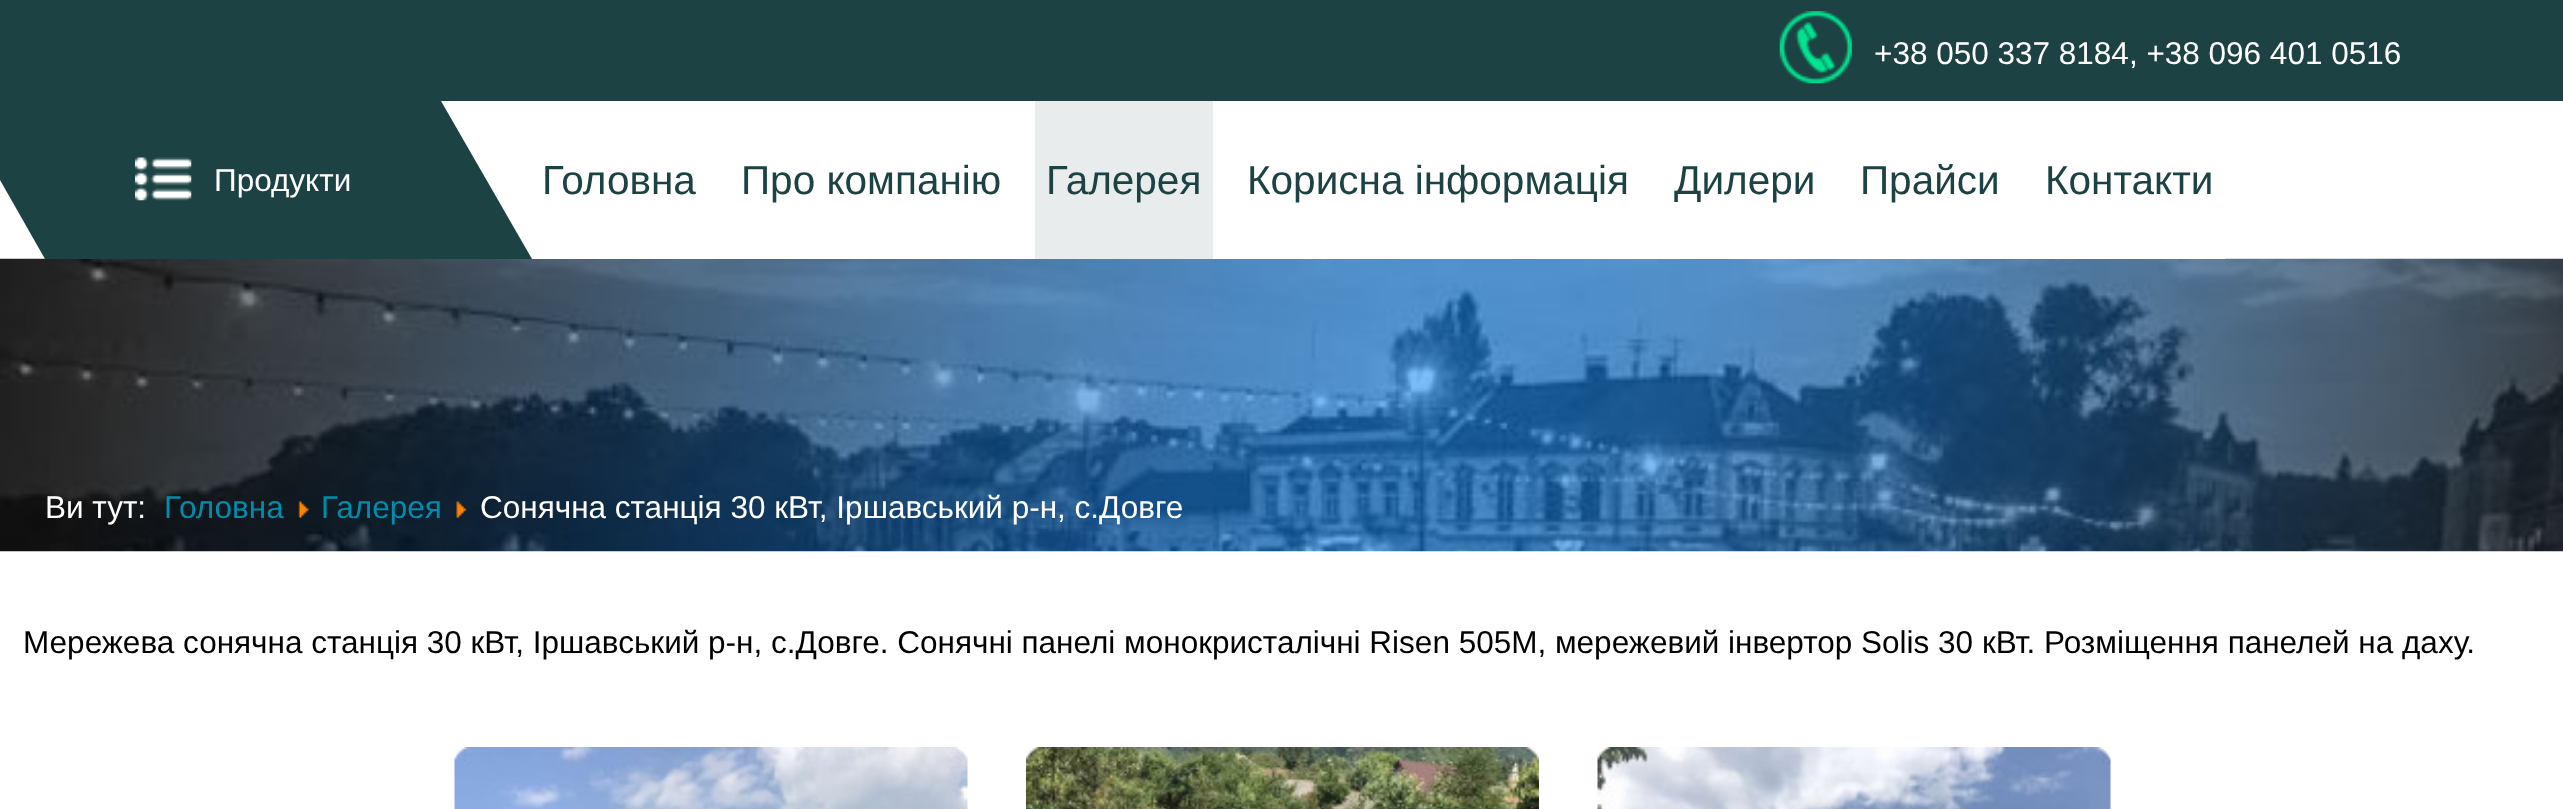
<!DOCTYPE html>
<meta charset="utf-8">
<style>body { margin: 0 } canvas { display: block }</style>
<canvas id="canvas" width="2563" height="809"></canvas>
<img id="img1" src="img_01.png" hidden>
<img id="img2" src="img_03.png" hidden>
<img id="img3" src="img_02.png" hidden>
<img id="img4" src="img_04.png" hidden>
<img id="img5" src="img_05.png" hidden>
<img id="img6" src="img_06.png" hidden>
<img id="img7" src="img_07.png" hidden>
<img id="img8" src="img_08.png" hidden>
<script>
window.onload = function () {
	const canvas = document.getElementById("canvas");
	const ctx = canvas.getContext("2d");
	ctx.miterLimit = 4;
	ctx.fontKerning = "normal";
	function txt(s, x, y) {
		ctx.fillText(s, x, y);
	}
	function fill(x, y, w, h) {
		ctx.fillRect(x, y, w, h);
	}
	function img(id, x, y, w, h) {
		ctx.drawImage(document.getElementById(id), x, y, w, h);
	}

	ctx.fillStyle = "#FFFFFF";
	fill(0, 0, 2563, 809);
	ctx.fillStyle = "#1D4243";
	fill(0, 0, 2563, 101);
	img("img1", 1779, 11, 73, 73);
	img("img2", 0, 258, 2563, 294);
	ctx.fillStyle = "#FFFFFF";
	fill(531, 258, 1694, 1);
	ctx.fillStyle = "#1D4243";
	ctx.beginPath();
	ctx.moveTo(-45, 101);
	ctx.lineTo(441, 101);
	ctx.lineTo(532, 259);
	ctx.lineTo(45, 259);
	ctx.closePath();
	ctx.fill();
	img("img3", 135, 157, 57, 44);
	ctx.fillStyle = "#E8ECEC";
	fill(1035, 101, 178, 158);
	img("img4", 298, 501, 11, 17);
	img("img5", 456, 501, 11, 17);
	img("img6", 454, 747, 514, 62);
	img("img7", 1026, 747, 513, 62);
	img("img8", 1597, 747, 514, 62);
	ctx.font = "31.5px Liberation Sans";
	ctx.fillStyle = "#FFFFFF";
	txt("+38 050 337 8184, +38 096 401 0516", 1874, 64);
	txt("Продукти", 214, 191);
	ctx.font = "40.5px Liberation Sans";
	ctx.fillStyle = "#1D4243";
	txt("Головна", 542, 194);
	txt("Про компанію", 741, 194);
	txt("Галерея", 1046, 194);
	txt("Корисна інформація", 1247, 194);
	txt("Дилери", 1674, 194);
	txt("Прайси", 1860, 194);
	txt("Контакти", 2045, 194);
	ctx.font = "31.5px Liberation Sans";
	ctx.fillStyle = "#FFFFFF";
	txt("Ви тут:", 45, 518);
	ctx.fillStyle = "#008CAA";
	txt("Головна", 164, 518);
	txt("Галерея", 321, 518);
	ctx.fillStyle = "#FFFFFF";
	txt("Сонячна станція 30 кВт, Іршавський р-н, с.Довге", 480, 518);
	ctx.fillStyle = "#000000";
	txt("Мережева сонячна станція 30 кВт, Іршавський р-н, с.Довге. Сонячні панелі монокристалічні Risen 505M, мережевий інвертор Solis 30 кВт. Розміщення панелей на даху.", 23, 653);
};
</script>
